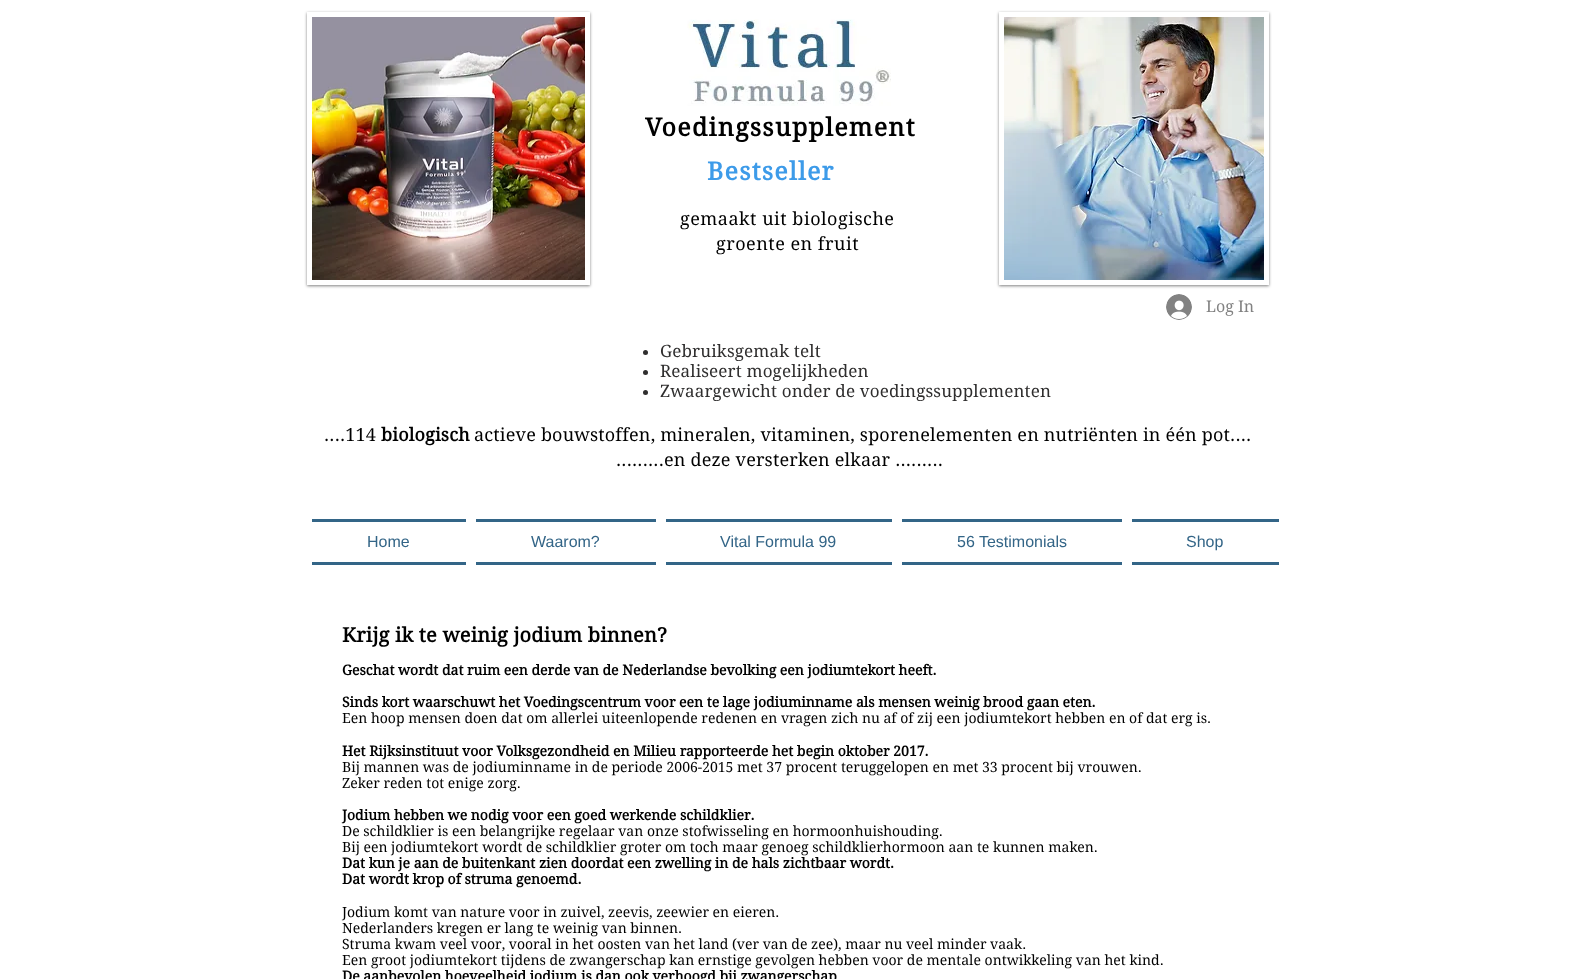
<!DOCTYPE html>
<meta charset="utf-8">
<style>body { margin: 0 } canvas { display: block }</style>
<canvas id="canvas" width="1577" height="979"></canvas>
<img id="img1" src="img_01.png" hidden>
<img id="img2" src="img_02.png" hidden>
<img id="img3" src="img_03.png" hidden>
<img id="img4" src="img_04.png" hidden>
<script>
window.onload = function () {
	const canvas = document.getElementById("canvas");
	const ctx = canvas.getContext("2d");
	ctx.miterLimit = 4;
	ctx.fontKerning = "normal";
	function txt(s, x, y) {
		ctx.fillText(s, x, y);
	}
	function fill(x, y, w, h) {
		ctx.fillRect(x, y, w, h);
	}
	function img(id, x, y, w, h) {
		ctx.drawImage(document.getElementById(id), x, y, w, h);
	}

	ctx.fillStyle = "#FFFFFF";
	fill(0, 0, 1577, 979);
	ctx.save();
	ctx.beginPath();
	ctx.moveTo(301, 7);
	ctx.lineTo(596, 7);
	ctx.lineTo(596, 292);
	ctx.lineTo(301, 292);
	ctx.closePath();
	ctx.moveTo(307, 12);
	ctx.lineTo(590, 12);
	ctx.lineTo(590, 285);
	ctx.lineTo(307, 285);
	ctx.closePath();
	ctx.clip("evenodd");
	ctx.fillStyle = "rgba(0, 0, 0, 0.5)";
	ctx.filter = "blur(1.5px)";
	ctx.beginPath();
	ctx.rect(307, 13, 283, 273);
	ctx.fill();
	ctx.filter = "none";
	ctx.restore();
	img("img1", 312, 17, 273, 263);
	img("img2", 687, 19, 204, 87);
	ctx.save();
	ctx.beginPath();
	ctx.moveTo(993, 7);
	ctx.lineTo(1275, 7);
	ctx.lineTo(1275, 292);
	ctx.lineTo(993, 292);
	ctx.closePath();
	ctx.moveTo(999, 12);
	ctx.lineTo(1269, 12);
	ctx.lineTo(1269, 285);
	ctx.lineTo(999, 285);
	ctx.closePath();
	ctx.clip("evenodd");
	ctx.fillStyle = "rgba(0, 0, 0, 0.5)";
	ctx.filter = "blur(1.5px)";
	ctx.beginPath();
	ctx.rect(999, 13, 270, 273);
	ctx.fill();
	ctx.filter = "none";
	ctx.restore();
	img("img3", 1004, 17, 260, 263);
	img("img4", 1166, 294, 26, 26);
	ctx.fillStyle = "#2F2E2E";
	ctx.beginPath();
	ctx.arc(645.5, 352.5, 2.5, 0, Math.PI * 2);
	ctx.fill();
	ctx.beginPath();
	ctx.arc(645.5, 372.5, 2.5, 0, Math.PI * 2);
	ctx.fill();
	ctx.beginPath();
	ctx.arc(645.5, 392.5, 2.5, 0, Math.PI * 2);
	ctx.fill();
	ctx.fillStyle = "#336587";
	fill(312, 519, 154, 3);
	fill(312, 562, 154, 3);
	fill(476, 519, 180, 3);
	fill(476, 562, 180, 3);
	fill(666, 519, 226, 3);
	fill(666, 562, 226, 3);
	fill(902, 519, 220, 3);
	fill(902, 562, 220, 3);
	fill(1132, 519, 147, 3);
	fill(1132, 562, 147, 3);
	ctx.letterSpacing = "1.25px";
	ctx.font = "bold 25px 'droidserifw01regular'";
	ctx.fillStyle = "#000000";
	txt("Voedingssupplement", 645, 136);
	ctx.fillStyle = "#3D9BE9";
	txt("Bestseller", 707, 180);
	ctx.letterSpacing = "0.5px";
	ctx.font = "18px 'droidserifw01regular'";
	ctx.fillStyle = "#000000";
	txt("gemaakt uit biologische", 680, 225);
	txt("groente en fruit", 716, 250);
	ctx.letterSpacing = "0px";
	ctx.font = "16px 'droidserifw01regular'";
	ctx.fillStyle = "#828282";
	txt("Log In", 1206, 312);
	ctx.letterSpacing = "0.15px";
	ctx.font = "17px 'droidserifw01regular'";
	ctx.fillStyle = "#2F2E2E";
	txt("Gebruiksgemak telt", 660, 357);
	txt("Realiseert mogelijkheden", 660, 377);
	txt("Zwaargewicht onder de voedingssupplementen", 660, 397);
	ctx.letterSpacing = "0.18px";
	ctx.font = "18px 'droidserifw01regular'";
	ctx.fillStyle = "#000000";
	txt("....114", 324, 441);
	ctx.font = "bold 18px 'droidserifw01regular'";
	txt("biologisch", 381, 441);
	ctx.font = "18px 'droidserifw01regular'";
	txt("actieve bouwstoffen, mineralen, vitaminen, sporenelementen en nutriënten in één pot....", 474, 441);
	txt(".........en deze versterken elkaar .........", 616, 466);
	ctx.letterSpacing = "0px";
	ctx.font = "16px Liberation Sans";
	ctx.fillStyle = "#336587";
	txt("Home", 367, 547);
	txt("Waarom?", 531, 547);
	txt("Vital Formula 99", 720, 547);
	txt("56 Testimonials", 957, 547);
	txt("Shop", 1186, 547);
	ctx.letterSpacing = "0.2px";
	ctx.font = "bold 20px 'droidserifw01regular'";
	ctx.fillStyle = "#000000";
	txt("Krijg ik te weinig jodium binnen?", 342, 642);
	ctx.letterSpacing = "0px";
	ctx.font = "bold 14px 'droidserifw01regular'";
	txt("Geschat wordt dat ruim een derde van de Nederlandse bevolking een jodiumtekort heeft.", 342, 675);
	txt("Sinds kort waarschuwt het Voedingscentrum voor een te lage jodiuminname als mensen weinig brood gaan eten.", 342, 707);
	ctx.font = "14px 'droidserifw01regular'";
	txt("Een hoop mensen doen dat om allerlei uiteenlopende redenen en vragen zich nu af of zij een jodiumtekort hebben en of dat erg is.", 342, 723);
	ctx.font = "bold 14px 'droidserifw01regular'";
	txt("Het Rijksinstituut voor Volksgezondheid en Milieu rapporteerde het begin oktober 2017.", 342, 756);
	ctx.font = "14px 'droidserifw01regular'";
	txt("Bij mannen was de jodiuminname in de periode 2006-2015 met 37 procent teruggelopen en met 33 procent bij vrouwen.", 342, 772);
	txt("Zeker reden tot enige zorg.", 342, 788);
	ctx.font = "bold 14px 'droidserifw01regular'";
	txt("Jodium hebben we nodig voor een goed werkende schildklier.", 342, 820);
	ctx.font = "14px 'droidserifw01regular'";
	txt("De schildklier is een belangrijke regelaar van onze stofwisseling en hormoonhuishouding.", 342, 836);
	txt("Bij een jodiumtekort wordt de schildklier groter om toch maar genoeg schildklierhormoon aan te kunnen maken.", 342, 852);
	ctx.font = "bold 14px 'droidserifw01regular'";
	txt("Dat kun je aan de buitenkant zien doordat een zwelling in de hals zichtbaar wordt.", 342, 868);
	txt("Dat wordt krop of struma genoemd.", 342, 884);
	ctx.font = "14px 'droidserifw01regular'";
	txt("Jodium komt van nature voor in zuivel, zeevis, zeewier en eieren.", 342, 917);
	txt("Nederlanders kregen er lang te weinig van binnen.", 342, 933);
	txt("Struma kwam veel voor, vooral in het oosten van het land (ver van de zee), maar nu veel minder vaak.", 342, 949);
	txt("Een groot jodiumtekort tijdens de zwangerschap kan ernstige gevolgen hebben voor de mentale ontwikkeling van het kind.", 342, 965);
	ctx.font = "bold 14px 'droidserifw01regular'";
	txt("De aanbevolen hoeveelheid jodium is dan ook verhoogd bij zwangerschap", 342, 981);
};
</script>
